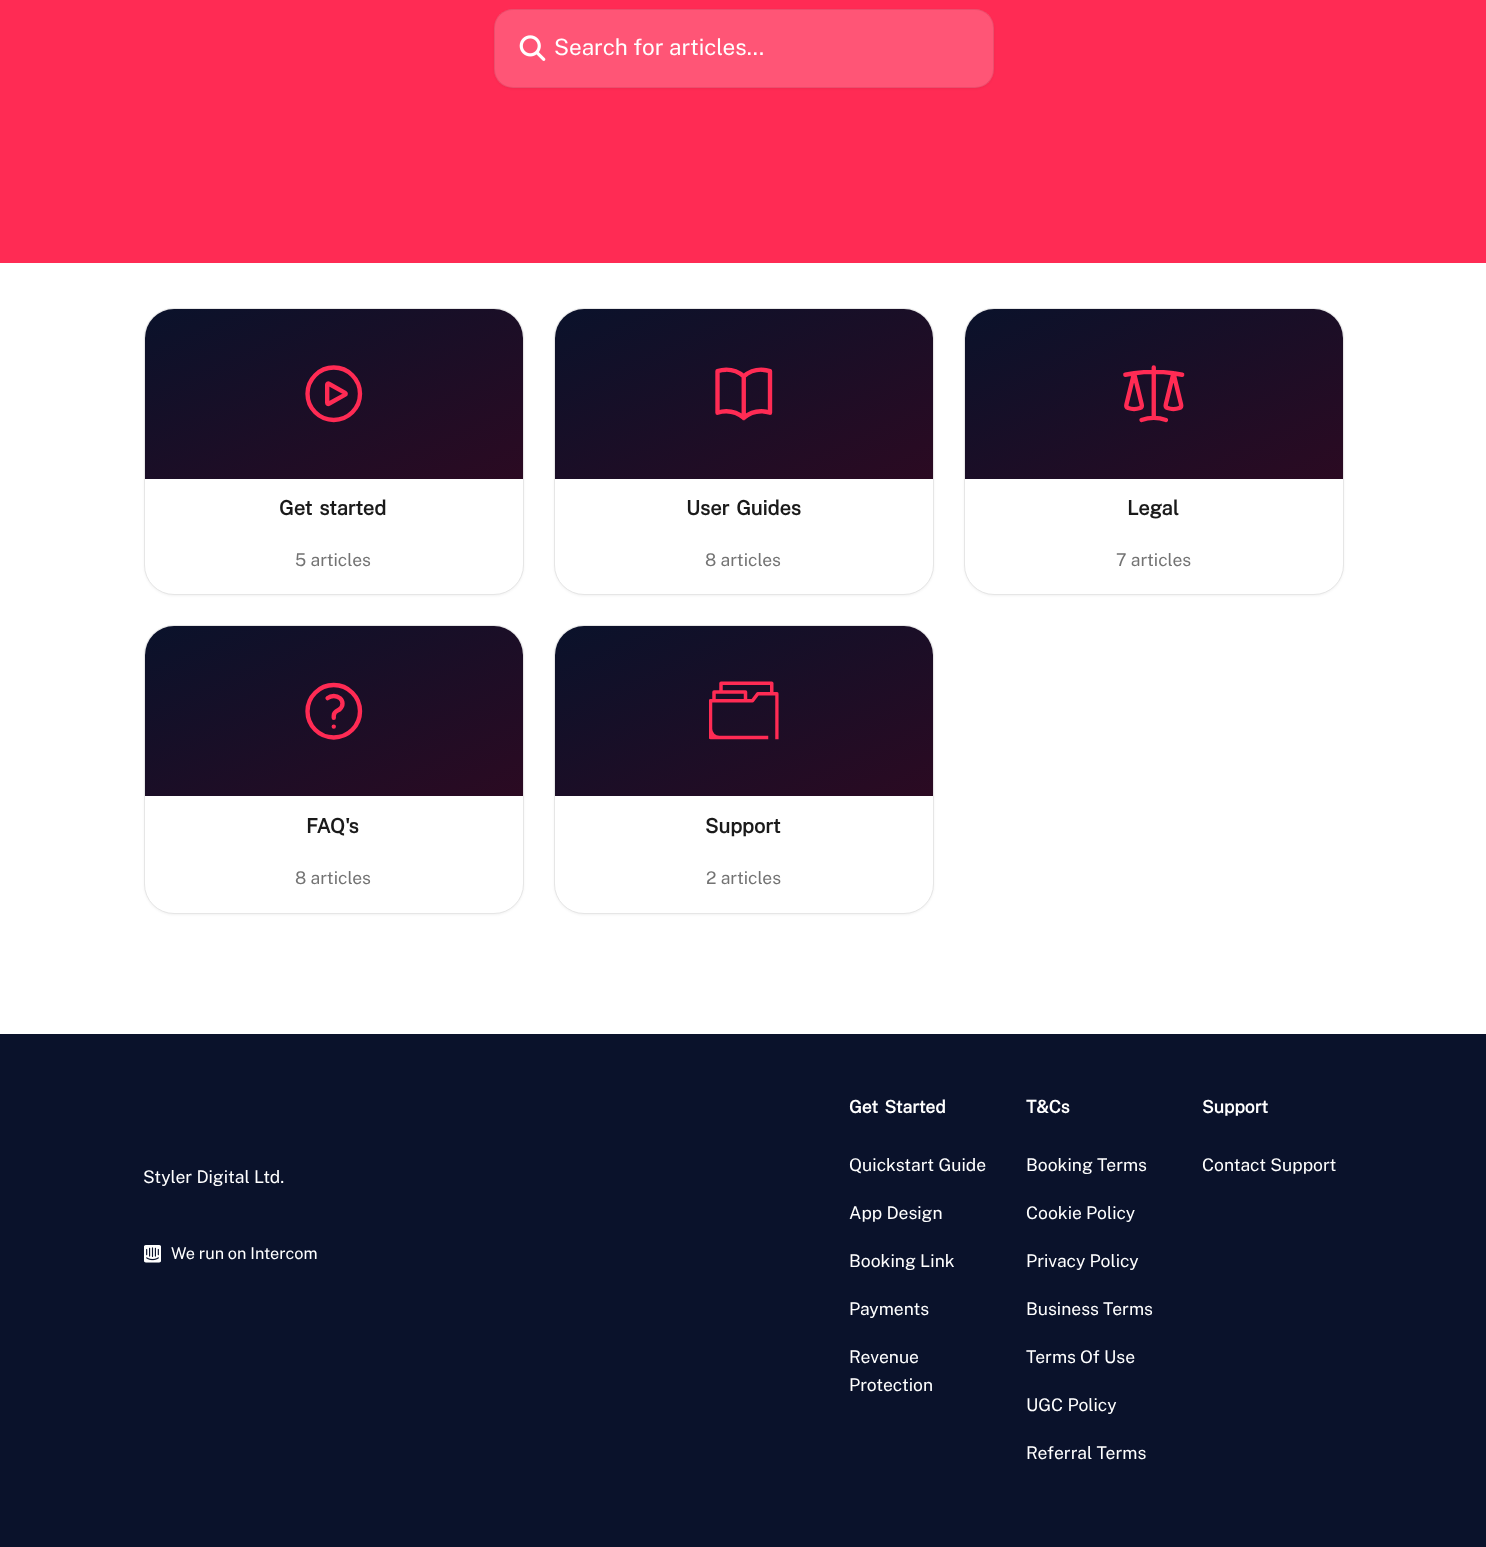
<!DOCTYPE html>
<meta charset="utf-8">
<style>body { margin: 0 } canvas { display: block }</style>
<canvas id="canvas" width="1486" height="1547"></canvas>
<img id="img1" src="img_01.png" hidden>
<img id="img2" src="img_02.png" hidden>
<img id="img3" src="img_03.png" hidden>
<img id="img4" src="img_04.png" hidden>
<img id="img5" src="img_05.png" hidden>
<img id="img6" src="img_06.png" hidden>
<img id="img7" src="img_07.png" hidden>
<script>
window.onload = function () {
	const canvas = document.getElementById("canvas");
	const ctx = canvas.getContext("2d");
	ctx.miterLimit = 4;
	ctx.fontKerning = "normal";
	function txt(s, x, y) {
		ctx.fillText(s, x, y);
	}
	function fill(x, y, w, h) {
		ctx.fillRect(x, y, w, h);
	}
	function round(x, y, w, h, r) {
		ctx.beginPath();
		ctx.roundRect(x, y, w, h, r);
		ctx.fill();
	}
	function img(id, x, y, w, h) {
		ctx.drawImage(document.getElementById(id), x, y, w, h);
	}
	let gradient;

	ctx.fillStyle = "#FFFFFF";
	fill(0, 0, 1486, 1547);
	ctx.fillStyle = "#FF2B54";
	fill(0, 0, 1486, 263);
	ctx.save();
	ctx.beginPath();
	ctx.moveTo(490, 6);
	ctx.lineTo(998, 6);
	ctx.lineTo(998, 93);
	ctx.lineTo(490, 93);
	ctx.closePath();
	ctx.moveTo(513, 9);
	ctx.lineTo(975, 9);
	ctx.bezierCurveTo(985.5, 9, 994, 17.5, 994, 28);
	ctx.lineTo(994, 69);
	ctx.bezierCurveTo(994, 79.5, 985.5, 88, 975, 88);
	ctx.lineTo(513, 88);
	ctx.bezierCurveTo(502.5, 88, 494, 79.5, 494, 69);
	ctx.lineTo(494, 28);
	ctx.bezierCurveTo(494, 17.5, 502.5, 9, 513, 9);
	ctx.closePath();
	ctx.clip("evenodd");
	ctx.fillStyle = "rgba(0, 0, 0, 0.05)";
	ctx.filter = "blur(1px)";
	ctx.beginPath();
	ctx.roundRect(494, 10, 500, 79, 19);
	ctx.fill();
	ctx.filter = "none";
	ctx.restore();
	ctx.fillStyle = "rgba(255, 255, 255, 0.2)";
	round(494, 9, 500, 79, 19);
	ctx.beginPath();
	ctx.roundRect(494.5, 9.5, 499, 78, 18.5);
	ctx.strokeStyle = "rgba(0, 0, 0, 0.08)";
	ctx.stroke();
	img("img1", 519, 35, 27, 26);
	ctx.fillStyle = "rgba(0, 0, 0, 0.05)";
	ctx.filter = "blur(1px)";
	ctx.beginPath();
	ctx.roundRect(144, 309, 380, 287, 30);
	ctx.fill();
	ctx.filter = "none";
	ctx.fillStyle = "#FFFFFF";
	ctx.beginPath();
	ctx.roundRect(144.5, 308.5, 379, 286, 29.5);
	ctx.fill();
	ctx.strokeStyle = "#E6E6E6";
	ctx.stroke();
	gradient = ctx.createLinearGradient(270, 252, 397, 535);
	gradient.addColorStop(0, "#0A122B");
	gradient.addColorStop(1, "#2B0A22");
	ctx.fillStyle = gradient;
	ctx.beginPath();
	ctx.roundRect(145, 309, 378, 170, [29, 29, 0, 0]);
	ctx.fill();
	img("img2", 305, 365, 58, 58);
	ctx.fillStyle = "rgba(0, 0, 0, 0.05)";
	ctx.filter = "blur(1px)";
	ctx.beginPath();
	ctx.roundRect(554, 309, 380, 287, 30);
	ctx.fill();
	ctx.filter = "none";
	ctx.fillStyle = "#FFFFFF";
	ctx.beginPath();
	ctx.roundRect(554.5, 308.5, 379, 286, 29.5);
	ctx.fill();
	ctx.stroke();
	gradient = ctx.createLinearGradient(680, 252, 807, 535);
	gradient.addColorStop(0, "#0A122B");
	gradient.addColorStop(1, "#2B0A22");
	ctx.fillStyle = gradient;
	ctx.beginPath();
	ctx.roundRect(555, 309, 378, 170, [29, 29, 0, 0]);
	ctx.fill();
	img("img3", 715, 367, 58, 54);
	ctx.fillStyle = "rgba(0, 0, 0, 0.05)";
	ctx.filter = "blur(1px)";
	ctx.beginPath();
	ctx.roundRect(964, 309, 380, 287, 30);
	ctx.fill();
	ctx.filter = "none";
	ctx.fillStyle = "#FFFFFF";
	ctx.beginPath();
	ctx.roundRect(964.5, 308.5, 379, 286, 29.5);
	ctx.fill();
	ctx.stroke();
	gradient = ctx.createLinearGradient(1090, 252, 1217, 535);
	gradient.addColorStop(0, "#0A122B");
	gradient.addColorStop(1, "#2B0A22");
	ctx.fillStyle = gradient;
	ctx.beginPath();
	ctx.roundRect(965, 309, 378, 170, [29, 29, 0, 0]);
	ctx.fill();
	img("img4", 1123, 365, 62, 58);
	ctx.fillStyle = "rgba(0, 0, 0, 0.05)";
	ctx.filter = "blur(1px)";
	ctx.beginPath();
	ctx.roundRect(144, 626, 380, 289, 30);
	ctx.fill();
	ctx.filter = "none";
	ctx.fillStyle = "#FFFFFF";
	ctx.beginPath();
	ctx.roundRect(144.5, 625.5, 379, 288, 29.5);
	ctx.fill();
	ctx.stroke();
	gradient = ctx.createLinearGradient(270, 570, 397, 853);
	gradient.addColorStop(0, "#0A122B");
	gradient.addColorStop(1, "#2B0A22");
	ctx.fillStyle = gradient;
	ctx.beginPath();
	ctx.roundRect(145, 626, 378, 170, [29, 29, 0, 0]);
	ctx.fill();
	img("img5", 305, 682, 58, 58);
	ctx.fillStyle = "rgba(0, 0, 0, 0.05)";
	ctx.filter = "blur(1px)";
	ctx.beginPath();
	ctx.roundRect(554, 626, 380, 289, 30);
	ctx.fill();
	ctx.filter = "none";
	ctx.fillStyle = "#FFFFFF";
	ctx.beginPath();
	ctx.roundRect(554.5, 625.5, 379, 288, 29.5);
	ctx.fill();
	ctx.stroke();
	gradient = ctx.createLinearGradient(680, 570, 807, 853);
	gradient.addColorStop(0, "#0A122B");
	gradient.addColorStop(1, "#2B0A22");
	ctx.fillStyle = gradient;
	ctx.beginPath();
	ctx.roundRect(555, 626, 378, 170, [29, 29, 0, 0]);
	ctx.fill();
	img("img6", 709, 681, 70, 59);
	ctx.fillStyle = "#0A122B";
	fill(0, 1034, 1486, 513);
	img("img7", 144, 1245, 17, 18);
	ctx.font = "22.5px Public Sans";
	ctx.fillStyle = "#FFFFFF";
	txt("Search for articles...", 554, 55);
	ctx.wordSpacing = "2px";
	ctx.font = "bold 20px Public Sans";
	ctx.fillStyle = "#1A1A1A";
	txt("Get started", 279, 515);
	ctx.wordSpacing = "0px";
	ctx.font = "17.5px Public Sans";
	ctx.fillStyle = "#737373";
	txt("5 articles", 295, 566);
	ctx.wordSpacing = "2px";
	ctx.font = "bold 20px Public Sans";
	ctx.fillStyle = "#1A1A1A";
	txt("User Guides", 686, 515);
	ctx.wordSpacing = "0px";
	ctx.font = "17.5px Public Sans";
	ctx.fillStyle = "#737373";
	txt("8 articles", 705, 566);
	ctx.font = "bold 20px Public Sans";
	ctx.fillStyle = "#1A1A1A";
	txt("Legal", 1127, 515);
	ctx.font = "17.5px Public Sans";
	ctx.fillStyle = "#737373";
	txt("7 articles", 1116, 566);
	ctx.font = "bold 20px Public Sans";
	ctx.fillStyle = "#1A1A1A";
	txt("FAQ's", 306, 833);
	ctx.font = "17.5px Public Sans";
	ctx.fillStyle = "#737373";
	txt("8 articles", 295, 884);
	ctx.font = "bold 20px Public Sans";
	ctx.fillStyle = "#1A1A1A";
	txt("Support", 705, 833);
	ctx.font = "17.5px Public Sans";
	ctx.fillStyle = "#737373";
	txt("2 articles", 706, 884);
	ctx.fillStyle = "#FFFFFF";
	txt("Styler Digital Ltd.", 143, 1183);
	ctx.font = "16.25px Public Sans";
	txt("We run on Intercom", 171, 1259);
	ctx.wordSpacing = "2px";
	ctx.font = "bold 17.5px Public Sans";
	txt("Get Started", 849, 1113);
	ctx.wordSpacing = "0px";
	ctx.font = "17.5px Public Sans";
	txt("Quickstart Guide", 849, 1171);
	txt("App Design", 849, 1219);
	txt("Booking Link", 849, 1267);
	txt("Payments", 849, 1315);
	txt("Revenue", 849, 1363);
	txt("Protection", 849, 1391);
	ctx.font = "bold 17.5px Public Sans";
	txt("T&Cs", 1026, 1113);
	ctx.font = "17.5px Public Sans";
	txt("Booking Terms", 1026, 1171);
	txt("Cookie Policy", 1026, 1219);
	txt("Privacy Policy", 1026, 1267);
	txt("Business Terms", 1026, 1315);
	txt("Terms Of Use", 1026, 1363);
	txt("UGC Policy", 1026, 1411);
	txt("Referral Terms", 1026, 1459);
	ctx.font = "bold 17.5px Public Sans";
	txt("Support", 1202, 1113);
	ctx.font = "17.5px Public Sans";
	txt("Contact Support", 1202, 1171);
};
</script>
